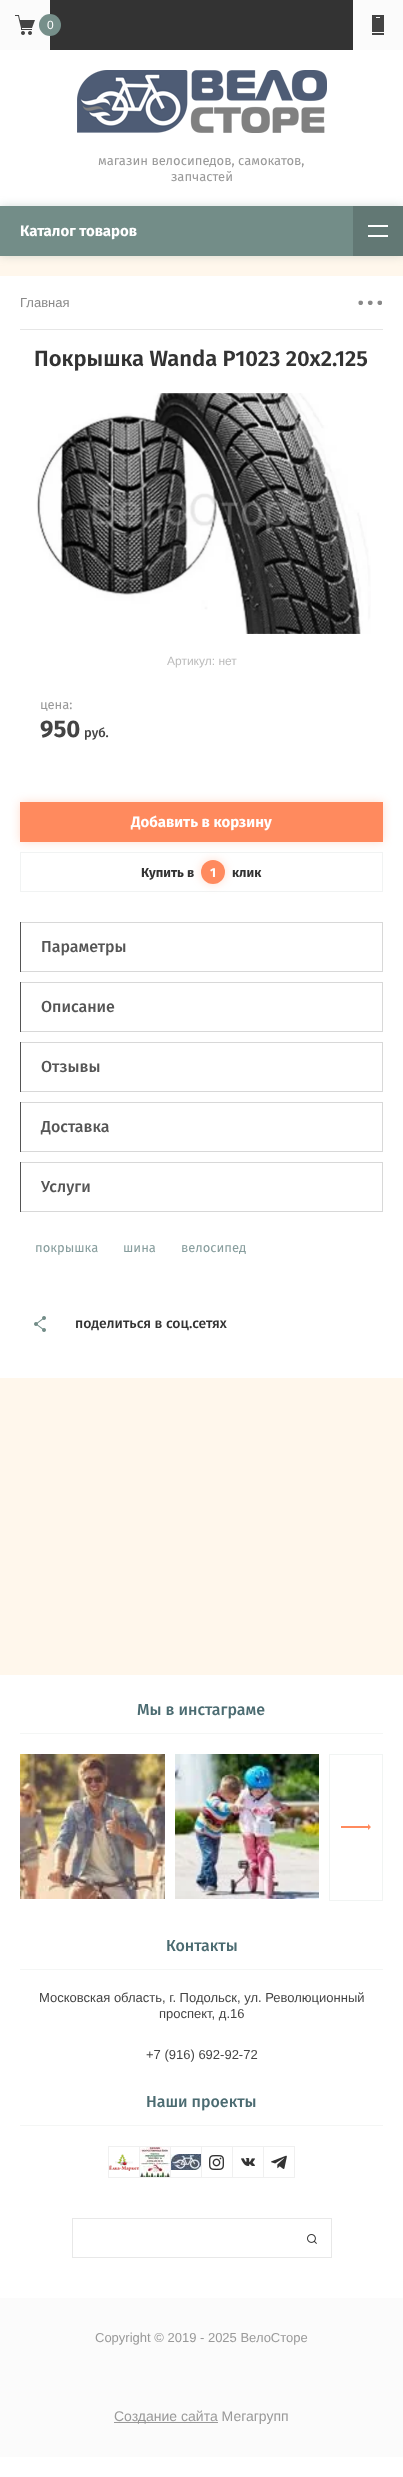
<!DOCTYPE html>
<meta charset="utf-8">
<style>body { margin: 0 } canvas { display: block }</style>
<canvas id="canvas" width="403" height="2477"></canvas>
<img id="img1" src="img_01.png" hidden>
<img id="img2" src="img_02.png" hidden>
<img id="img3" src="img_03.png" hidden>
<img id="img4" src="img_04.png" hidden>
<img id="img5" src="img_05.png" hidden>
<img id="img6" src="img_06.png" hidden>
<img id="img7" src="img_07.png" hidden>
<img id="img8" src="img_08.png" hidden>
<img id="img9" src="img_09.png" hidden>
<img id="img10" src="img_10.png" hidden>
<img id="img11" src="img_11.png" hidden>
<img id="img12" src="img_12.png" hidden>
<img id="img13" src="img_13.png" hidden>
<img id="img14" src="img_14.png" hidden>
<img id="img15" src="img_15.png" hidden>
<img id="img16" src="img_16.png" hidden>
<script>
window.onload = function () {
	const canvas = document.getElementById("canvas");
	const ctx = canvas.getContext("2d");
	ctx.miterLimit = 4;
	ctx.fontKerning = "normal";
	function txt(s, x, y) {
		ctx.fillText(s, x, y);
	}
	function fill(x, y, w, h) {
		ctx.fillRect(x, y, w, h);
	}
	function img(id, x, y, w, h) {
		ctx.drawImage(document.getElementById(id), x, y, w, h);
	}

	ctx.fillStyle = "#FFF7EC";
	fill(0, 0, 403, 2477);
	ctx.fillStyle = "#FFFFFF";
	fill(0, 50, 403, 156);
	ctx.fillStyle = "#333333";
	fill(50, 0, 303, 50);
	ctx.fillStyle = "#FBFBFB";
	fill(0, 0, 50, 50);
	img("img1", 15, 15, 20, 20);
	ctx.fillStyle = "#768F8A";
	ctx.beginPath();
	ctx.arc(50, 25, 11, 0, Math.PI * 2);
	ctx.fill();
	ctx.fillStyle = "#FBFBFB";
	fill(353, 0, 50, 50);
	img("img2", 372, 15, 12, 20);
	img("img3", 77, 70, 250, 63);
	ctx.fillStyle = "rgba(115, 141, 136, 0.3)";
	ctx.filter = "blur(5px)";
	ctx.beginPath();
	ctx.rect(0, 206, 403, 50);
	ctx.fill();
	ctx.filter = "none";
	ctx.fillStyle = "#738D88";
	fill(0, 206, 353, 50);
	ctx.fillStyle = "#627874";
	fill(353, 206, 50, 50);
	img("img4", 368, 225, 20, 12);
	ctx.fillStyle = "#FFFFFF";
	fill(0, 276, 403, 1102);
	ctx.fillStyle = "#E6E6E6";
	fill(20, 329, 363, 1);
	img("img5", 358, 300, 24, 5);
	img("img6", 36, 393, 335, 241);
	ctx.fillStyle = "rgba(255, 138, 94, 0.3)";
	ctx.filter = "blur(5px)";
	ctx.beginPath();
	ctx.rect(20, 802, 363, 40);
	ctx.fill();
	ctx.filter = "none";
	ctx.fillStyle = "#FF8A5E";
	fill(20, 802, 363, 40);
	ctx.strokeStyle = "#F1F3F3";
	ctx.strokeRect(20.5, 852.5, 362, 39);
	ctx.fillStyle = "rgba(255, 138, 94, 0.3)";
	ctx.filter = "blur(5px)";
	ctx.beginPath();
	ctx.roundRect(201, 860, 24, 24, 12);
	ctx.fill();
	ctx.filter = "none";
	ctx.fillStyle = "#FF8A5E";
	ctx.beginPath();
	ctx.arc(213, 872, 12, 0, Math.PI * 2);
	ctx.fill();
	ctx.strokeStyle = "#D8D8D8";
	ctx.strokeRect(20.5, 922.5, 362, 49);
	ctx.fillStyle = "#555555";
	fill(20, 922, 1, 50);
	ctx.strokeRect(20.5, 982.5, 362, 49);
	fill(20, 982, 1, 50);
	ctx.strokeRect(20.5, 1042.5, 362, 49);
	fill(20, 1042, 1, 50);
	ctx.strokeRect(20.5, 1102.5, 362, 49);
	fill(20, 1102, 1, 50);
	ctx.strokeRect(20.5, 1162.5, 362, 49);
	fill(20, 1162, 1, 50);
	img("img7", 34, 1316, 12, 16);
	ctx.fillStyle = "#FFFFFF";
	fill(0, 1675, 403, 802);
	ctx.fillStyle = "#F4F6F5";
	fill(20, 1733, 363, 1);
	img("img8", 20, 1754, 145, 145);
	img("img9", 175, 1754, 144, 145);
	ctx.strokeStyle = "#F1F4F3";
	ctx.strokeRect(329.5, 1754.5, 53, 146);
	ctx.fillStyle = "#FF8A5E";
	ctx.beginPath();
	ctx.moveTo(341, 1828);
	ctx.lineTo(368, 1828);
	ctx.lineTo(368, 1826);
	ctx.lineTo(341, 1826);
	ctx.closePath();
	ctx.moveTo(371, 1827);
	ctx.lineTo(368, 1830);
	ctx.lineTo(368, 1824);
	ctx.closePath();
	ctx.fill();
	ctx.fillStyle = "#F4F6F5";
	fill(20, 1969, 363, 1);
	fill(20, 2125, 363, 1);
	ctx.strokeStyle = "#F0F0F0";
	ctx.strokeRect(108.5, 2146.5, 31, 31);
	img("img10", 109, 2154, 30, 17);
	ctx.strokeRect(139.5, 2146.5, 31, 31);
	img("img11", 140, 2147, 30, 30);
	ctx.strokeRect(170.5, 2146.5, 31, 31);
	img("img12", 171, 2154, 30, 16);
	ctx.strokeRect(201.5, 2146.5, 31, 31);
	img("img13", 209, 2155, 15, 15);
	ctx.strokeRect(232.5, 2146.5, 31, 31);
	img("img14", 241, 2158, 14, 8);
	ctx.strokeRect(263.5, 2146.5, 31, 31);
	img("img15", 271, 2155, 16, 14);
	ctx.strokeStyle = "#E8E8E8";
	ctx.strokeRect(72.5, 2218.5, 259, 39);
	img("img16", 307, 2234, 10, 10);
	ctx.fillStyle = "#FBFBFB";
	fill(0, 2298, 403, 159);
	ctx.fillStyle = "#999999";
	fill(114, 2422, 104, 1);
	ctx.font = "12px Liberation Sans";
	ctx.fillStyle = "#FFFFFF";
	txt("0", 47, 29);
	ctx.font = "13px Fira Sans";
	ctx.fillStyle = "#999999";
	txt("магазин велосипедов, самокатов,", 98, 165);
	txt("запчастей", 171, 181);
	ctx.font = "bold 15px Fira Sans";
	ctx.fillStyle = "#FFFFFF";
	txt("Каталог товаров", 20, 236);
	ctx.font = "13px Liberation Sans";
	ctx.fillStyle = "#888888";
	txt("Главная", 20, 307);
	ctx.font = "600 22px Fira Sans";
	ctx.fillStyle = "#333333";
	txt("Покрышка Wanda P1023 20х2.125", 34, 366);
	ctx.font = "12px Liberation Sans";
	ctx.fillStyle = "#BCBCBC";
	txt("Артикул: нет", 167, 665);
	ctx.font = "13px Fira Sans";
	ctx.fillStyle = "#999999";
	txt("цена:", 40, 709);
	ctx.font = "bold 24px Fira Sans";
	ctx.fillStyle = "#444444";
	txt("950", 40, 737);
	ctx.font = "500 13px Fira Sans";
	txt("руб.", 84, 737);
	ctx.font = "bold 15px Fira Sans";
	ctx.fillStyle = "#FFFFFF";
	txt("Добавить в корзину", 131, 827);
	ctx.font = "bold 13px Fira Sans";
	ctx.fillStyle = "#333333";
	txt("Купить в", 141, 877);
	ctx.fillStyle = "#FFFFFF";
	txt("1", 210, 877);
	ctx.fillStyle = "#333333";
	txt("клик", 232, 877);
	ctx.font = "500 16px Fira Sans";
	ctx.fillStyle = "#555555";
	txt("Параметры", 41, 952);
	txt("Описание", 41, 1012);
	txt("Отзывы", 41, 1072);
	txt("Доставка", 41, 1132);
	txt("Услуги", 41, 1192);
	ctx.font = "13px Fira Sans";
	ctx.fillStyle = "#889E9E";
	txt("покрышка", 35, 1252);
	txt("шина", 123, 1252);
	txt("велосипед", 181, 1252);
	ctx.font = "500 14px Fira Sans";
	ctx.fillStyle = "#333333";
	txt("поделиться в соц.сетях", 75, 1328);
	ctx.font = "500 16px Fira Sans";
	ctx.fillStyle = "#4B6B71";
	txt("Мы в инстаграме", 137, 1715);
	txt("Контакты", 166, 1951);
	ctx.font = "13px Liberation Sans";
	ctx.fillStyle = "#444444";
	txt("Московская область, г. Подольск, ул. Революционный", 39, 2002);
	txt("проспект, д.16", 159, 2018);
	txt("+7 (916) 692-92-72", 146, 2059);
	ctx.font = "500 16px Fira Sans";
	ctx.fillStyle = "#4B6B71";
	txt("Наши проекты", 146, 2107);
	ctx.font = "13px Liberation Sans";
	ctx.fillStyle = "#999999";
	txt("Copyright © 2019 - 2025 ВелоСторе", 95, 2342);
	ctx.font = "14px Liberation Sans";
	txt("Создание сайта Мегагрупп", 114, 2421);
};
</script>
